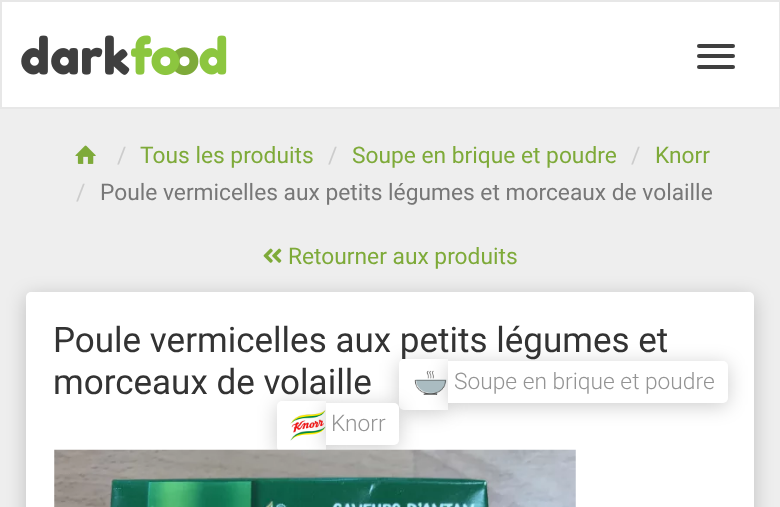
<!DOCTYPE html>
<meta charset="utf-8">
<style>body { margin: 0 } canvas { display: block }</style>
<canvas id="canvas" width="780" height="507"></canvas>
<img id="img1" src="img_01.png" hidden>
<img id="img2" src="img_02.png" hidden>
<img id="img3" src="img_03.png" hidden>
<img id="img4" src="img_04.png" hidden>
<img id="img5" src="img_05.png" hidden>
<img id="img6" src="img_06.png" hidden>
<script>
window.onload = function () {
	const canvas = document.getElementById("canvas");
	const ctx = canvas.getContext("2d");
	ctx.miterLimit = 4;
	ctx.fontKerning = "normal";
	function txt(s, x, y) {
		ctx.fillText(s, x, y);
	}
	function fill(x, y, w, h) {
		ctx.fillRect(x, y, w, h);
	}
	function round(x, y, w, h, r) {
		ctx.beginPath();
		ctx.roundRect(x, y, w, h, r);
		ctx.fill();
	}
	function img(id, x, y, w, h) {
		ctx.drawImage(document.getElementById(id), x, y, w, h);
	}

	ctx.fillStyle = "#EEEEEE";
	fill(0, 0, 780, 507);
	ctx.fillStyle = "#FFFFFF";
	ctx.beginPath();
	ctx.rect(1, 1, 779, 107);
	ctx.fill();
	ctx.strokeStyle = "#E7E7E7";
	ctx.lineWidth = 2;
	ctx.stroke();
	img("img1", 21, 35, 206, 41);
	ctx.fillStyle = "#3F3F3F";
	round(697, 44, 38, 4, 2);
	round(697, 54, 38, 4, 2);
	round(697, 65, 38, 4, 2);
	img("img2", 75, 145, 21, 19);
	img("img3", 263, 248, 19, 15);
	ctx.fillStyle = "rgba(0, 0, 0, 0.2)";
	ctx.filter = "blur(9.5px)";
	ctx.beginPath();
	ctx.roundRect(26, 296, 728, 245, 5);
	ctx.fill();
	ctx.filter = "none";
	ctx.fillStyle = "#FFFFFF";
	round(26, 292, 728, 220, 5);
	ctx.fillStyle = "rgba(0, 0, 0, 0.2)";
	ctx.filter = "blur(9.5px)";
	ctx.beginPath();
	ctx.roundRect(399, 362, 49, 51, 5);
	ctx.fill();
	ctx.filter = "none";
	ctx.filter = "blur(9.5px)";
	ctx.beginPath();
	ctx.roundRect(277, 404, 49, 51, 5);
	ctx.fill();
	ctx.filter = "none";
	ctx.fillStyle = "#FFFFFF";
	ctx.beginPath();
	ctx.roundRect(277, 401, 49, 51, [5, 0, 0, 5]);
	ctx.fill();
	ctx.font = "22.75px Roboto";
	ctx.fillStyle = "#CCCCCC";
	txt("/", 117, 163);
	ctx.fillStyle = "#7EAA39";
	txt("Tous les produits", 140, 163);
	ctx.fillStyle = "#CCCCCC";
	txt("/", 328, 163);
	ctx.fillStyle = "#7EAA39";
	txt("Soupe en brique et poudre", 352, 163);
	ctx.fillStyle = "#CCCCCC";
	txt("/", 631, 163);
	ctx.fillStyle = "#7EAA39";
	txt("Knorr", 655, 163);
	ctx.fillStyle = "#CCCCCC";
	txt("/", 76, 200);
	ctx.fillStyle = "#777777";
	txt("Poule vermicelles aux petits légumes et morceaux de volaille", 100, 200);
	ctx.fillStyle = "#7EAA39";
	txt("Retourner aux produits", 288, 264);
	ctx.font = "35px Roboto";
	ctx.fillStyle = "#333333";
	txt("Poule vermicelles aux petits légumes et", 53, 352);
	txt("morceaux de volaille", 53, 394);
	ctx.fillStyle = "#FFFFFF";
	ctx.beginPath();
	ctx.roundRect(399, 359, 49, 51, [5, 0, 0, 5]);
	ctx.fill();
	ctx.fillStyle = "rgba(0, 0, 0, 0.2)";
	ctx.filter = "blur(9.5px)";
	ctx.beginPath();
	ctx.roundRect(448, 364, 280, 42, 5);
	ctx.fill();
	ctx.filter = "none";
	img("img4", 414, 370, 33, 25);
	ctx.fillStyle = "#FFFFFF";
	ctx.beginPath();
	ctx.roundRect(448, 361, 280, 42, [0, 5, 5, 0]);
	ctx.fill();
	ctx.font = "300 22.75px Roboto";
	ctx.fillStyle = "#949494";
	txt("Soupe en brique et poudre", 454, 389);
	ctx.fillStyle = "rgba(0, 0, 0, 0.2)";
	ctx.filter = "blur(9.5px)";
	ctx.beginPath();
	ctx.roundRect(326, 406, 73, 42, 5);
	ctx.fill();
	ctx.filter = "none";
	img("img5", 290, 410, 36, 31);
	ctx.fillStyle = "#FFFFFF";
	ctx.beginPath();
	ctx.roundRect(326, 403, 73, 42, [0, 5, 5, 0]);
	ctx.fill();
	ctx.fillStyle = "#949494";
	txt("Knorr", 331, 431);
	img("img6", 54, 449, 522, 58);
};
</script>
